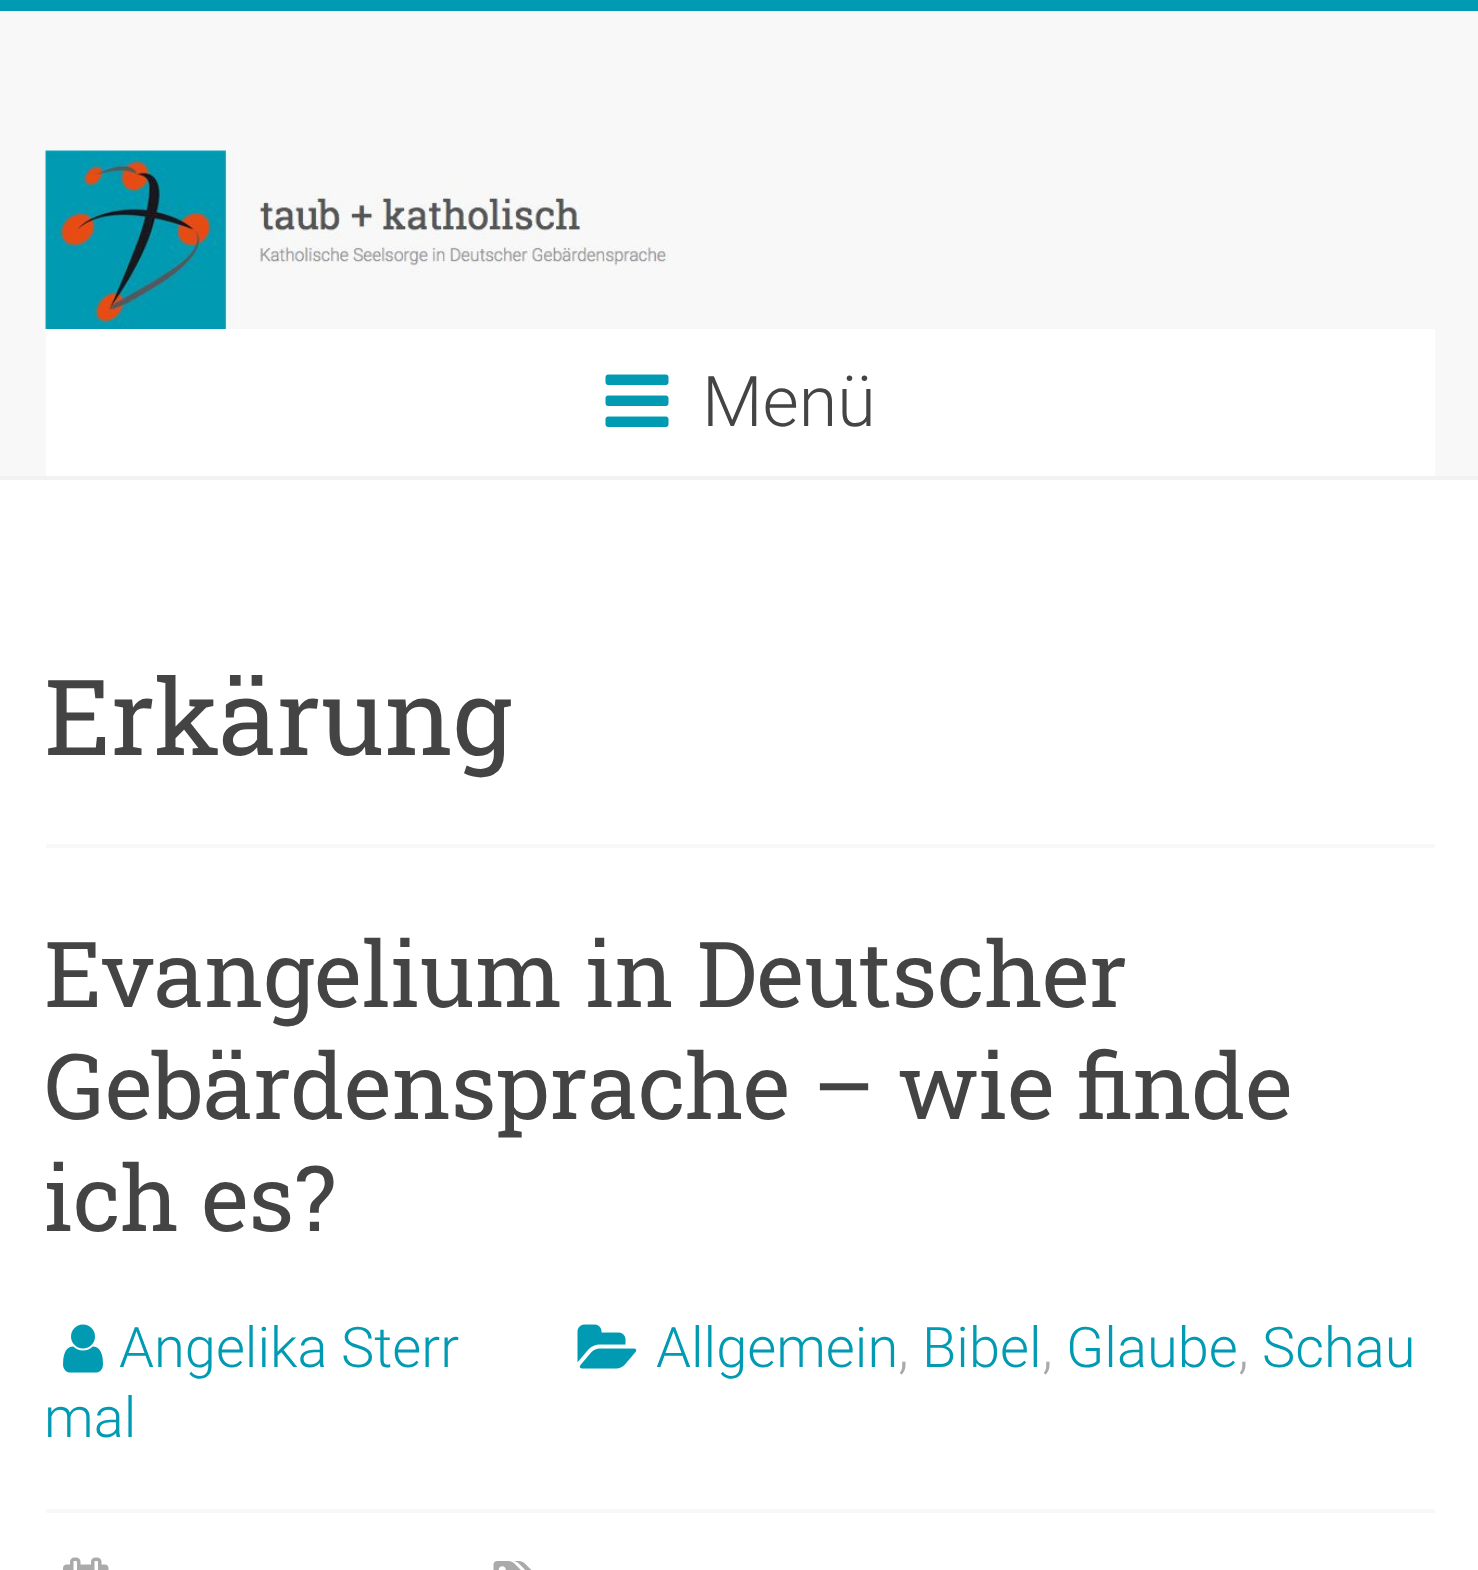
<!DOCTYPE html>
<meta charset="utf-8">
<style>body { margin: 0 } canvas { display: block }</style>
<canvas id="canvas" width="1478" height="1570"></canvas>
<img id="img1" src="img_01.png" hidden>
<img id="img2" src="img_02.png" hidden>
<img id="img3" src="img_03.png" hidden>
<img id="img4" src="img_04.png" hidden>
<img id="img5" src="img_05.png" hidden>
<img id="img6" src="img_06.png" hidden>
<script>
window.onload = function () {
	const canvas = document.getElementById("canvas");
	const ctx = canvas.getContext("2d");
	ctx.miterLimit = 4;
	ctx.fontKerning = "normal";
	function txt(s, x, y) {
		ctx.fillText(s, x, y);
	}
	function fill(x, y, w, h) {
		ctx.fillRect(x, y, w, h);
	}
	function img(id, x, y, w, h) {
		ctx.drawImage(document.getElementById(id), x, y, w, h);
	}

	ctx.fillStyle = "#FFFFFF";
	fill(0, 0, 1478, 1570);
	ctx.fillStyle = "#009AB2";
	fill(0, 0, 1478, 11);
	ctx.fillStyle = "#F8F8F8";
	fill(0, 11, 1478, 465);
	ctx.fillStyle = "#F2F2F2";
	fill(0, 476, 1478, 4);
	img("img1", 45, 150, 625, 179);
	ctx.fillStyle = "#FFFFFF";
	fill(46, 329, 1389, 147);
	img("img2", 605, 374, 64, 53);
	ctx.fillStyle = "#F8F8F8";
	fill(46, 844, 1389, 4);
	img("img3", 577, 1324, 60, 45);
	img("img4", 63, 1324, 40, 49);
	fill(46, 1509, 1389, 4);
	img("img5", 63, 1557, 46, 13);
	img("img6", 493, 1561, 39, 9);
	ctx.font = "300 70px Roboto";
	ctx.fillStyle = "#444444";
	txt("Menü", 702, 426);
	ctx.font = "105px Roboto Slab";
	txt("Erkärung", 44, 755);
	ctx.font = "91px Roboto Slab";
	txt("Evangelium in Deutscher", 44, 1007);
	txt("Gebärdensprache – wie finde", 44, 1119);
	txt("ich es?", 44, 1231);
	ctx.font = "300 56px Roboto";
	ctx.fillStyle = "#009AB2";
	txt("Allgemein", 656, 1367);
	ctx.fillStyle = "#AAAAAA";
	txt(",", 898, 1367);
	ctx.fillStyle = "#009AB2";
	txt("Bibel", 922, 1367);
	ctx.fillStyle = "#AAAAAA";
	txt(",", 1042, 1367);
	ctx.fillStyle = "#009AB2";
	txt("Glaube", 1066, 1367);
	ctx.fillStyle = "#AAAAAA";
	txt(",", 1238, 1367);
	ctx.fillStyle = "#009AB2";
	txt("Schau", 1262, 1367);
	txt("mal", 44, 1437);
	txt("Angelika Sterr", 119, 1367);
};
</script>
